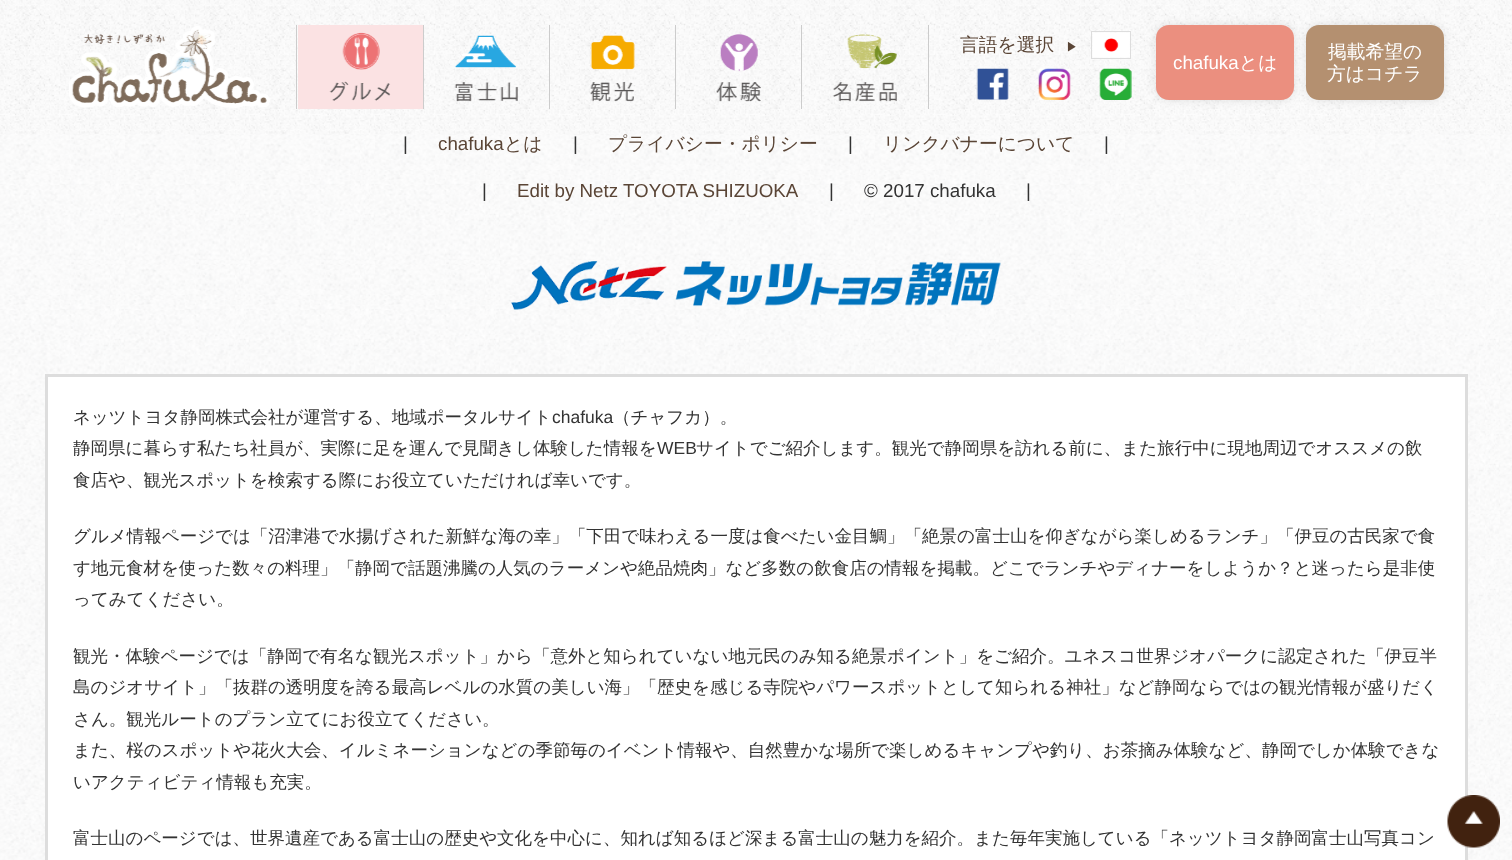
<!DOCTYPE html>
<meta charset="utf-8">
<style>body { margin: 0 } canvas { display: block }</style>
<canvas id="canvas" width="1512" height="860"></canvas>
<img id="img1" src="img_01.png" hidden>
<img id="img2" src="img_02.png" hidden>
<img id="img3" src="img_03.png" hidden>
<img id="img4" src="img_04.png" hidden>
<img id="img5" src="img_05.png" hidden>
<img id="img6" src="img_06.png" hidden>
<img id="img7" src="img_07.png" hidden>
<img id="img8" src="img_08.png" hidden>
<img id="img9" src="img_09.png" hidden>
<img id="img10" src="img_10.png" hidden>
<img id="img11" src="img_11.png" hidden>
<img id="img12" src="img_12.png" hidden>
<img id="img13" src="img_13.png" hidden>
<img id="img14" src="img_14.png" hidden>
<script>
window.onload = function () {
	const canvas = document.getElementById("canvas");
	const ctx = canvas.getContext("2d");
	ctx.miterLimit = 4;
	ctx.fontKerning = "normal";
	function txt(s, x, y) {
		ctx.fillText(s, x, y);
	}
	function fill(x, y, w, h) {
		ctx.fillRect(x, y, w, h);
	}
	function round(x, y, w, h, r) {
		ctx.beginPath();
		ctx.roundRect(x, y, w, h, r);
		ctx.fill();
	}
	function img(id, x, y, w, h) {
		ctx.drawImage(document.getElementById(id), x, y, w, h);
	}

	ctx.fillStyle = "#FFFFFF";
	fill(0, 0, 1512, 860);
	img("img1", 0, 133, 1512, 727);
	img("img2", 0, 0, 1512, 134);
	img("img3", 69, 26, 201, 82);
	ctx.fillStyle = "#CCCCCC";
	fill(296, 25, 1, 84);
	ctx.fillStyle = "#FBE2E3";
	fill(298, 25, 125, 84);
	ctx.fillStyle = "#CCCCCC";
	fill(423, 25, 1, 84);
	img("img4", 329, 32, 62, 69);
	fill(549, 25, 1, 84);
	img("img5", 454, 35, 65, 67);
	fill(675, 25, 1, 84);
	img("img6", 590, 35, 45, 67);
	fill(801, 25, 1, 84);
	img("img7", 716, 34, 45, 68);
	fill(928, 25, 1, 84);
	img("img8", 832, 34, 65, 68);
	img("img9", 1092, 32, 38, 26);
	ctx.strokeStyle = "#DDDDDD";
	ctx.strokeRect(1091.5, 31.5, 39, 27);
	img("img10", 976, 68, 33, 32);
	img("img11", 1038, 68, 33, 32);
	img("img12", 1099, 68, 33, 32);
	ctx.fillStyle = "rgba(0, 0, 0, 0.1)";
	ctx.filter = "blur(5px)";
	ctx.beginPath();
	ctx.roundRect(1306, 25, 138, 75, 13);
	ctx.fill();
	ctx.filter = "none";
	ctx.fillStyle = "#B49070";
	round(1306, 25, 138, 75, 13);
	ctx.fillStyle = "rgba(0, 0, 0, 0.1)";
	ctx.filter = "blur(5px)";
	ctx.beginPath();
	ctx.roundRect(1156, 25, 138, 75, 13);
	ctx.fill();
	ctx.filter = "none";
	ctx.fillStyle = "#EB8F7F";
	round(1156, 25, 138, 75, 13);
	img("img13", 511, 261, 490, 49);
	ctx.fillStyle = "#FFFFFF";
	ctx.beginPath();
	ctx.rect(46.5, 375.5, 1420, 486);
	ctx.fill();
	ctx.lineWidth = 3;
	ctx.stroke();
	img("img14", 1447, 795, 53, 53);
	ctx.font = "500 18.75px WenQuanYi Zen Hei";
	ctx.fillStyle = "#5A4536";
	txt("言語を選択", 960, 51);
	ctx.font = "500 12px WenQuanYi Zen Hei";
	txt("▶", 1066, 51);
	ctx.font = "18.75px Liberation Sans";
	ctx.fillStyle = "#FFFFFF";
	txt("chafuka", 1173, 69);
	ctx.font = "500 18.75px WenQuanYi Zen Hei";
	txt("とは", 1239, 69);
	txt("掲載希望の", 1328, 58);
	txt("方はコチラ", 1327, 80);
	ctx.font = "18.75px Liberation Sans";
	ctx.fillStyle = "#333333";
	txt("|", 403, 150);
	ctx.fillStyle = "#5A4536";
	txt("chafuka", 438, 150);
	ctx.font = "500 18.75px WenQuanYi Zen Hei";
	txt("とは", 504, 150);
	ctx.font = "18.75px Liberation Sans";
	ctx.fillStyle = "#333333";
	txt("|", 573, 150);
	ctx.font = "500 18.75px WenQuanYi Zen Hei";
	ctx.fillStyle = "#5A4536";
	txt("プライバシー・ポリシー", 608, 150);
	ctx.font = "18.75px Liberation Sans";
	ctx.fillStyle = "#333333";
	txt("|", 848, 150);
	ctx.font = "500 18.75px WenQuanYi Zen Hei";
	ctx.fillStyle = "#5A4536";
	txt("リンクバナーについて", 883, 150);
	ctx.font = "18.75px Liberation Sans";
	ctx.fillStyle = "#333333";
	txt("|", 1104, 150);
	txt("|", 482, 197);
	ctx.fillStyle = "#5A4536";
	txt("Edit by Netz TOYOTA SHIZUOKA", 517, 197);
	ctx.fillStyle = "#333333";
	txt("|", 829, 197);
	txt("© 2017 chafuka", 864, 197);
	txt("|", 1026, 197);
	ctx.font = "500 17.5px WenQuanYi Zen Hei";
	txt("ネッツトヨタ静岡株式会社が運営する、地域ポータルサイト", 73, 423);
	ctx.font = "17.5px Liberation Sans";
	txt("chafuka", 552, 423);
	ctx.font = "500 17.5px WenQuanYi Zen Hei";
	txt("（チャフカ）。", 613, 423);
	txt("静岡県に暮らす私たち社員が、実際に足を運んで見聞きし体験した情報を", 73, 454);
	ctx.font = "17.5px Liberation Sans";
	txt("WEB", 657, 454);
	ctx.font = "500 17.5px WenQuanYi Zen Hei";
	txt("サイトでご紹介します。観光で静岡県を訪れる前に、また旅行中に現地周辺でオススメの飲", 696, 454);
	txt("食店や、観光スポットを検索する際にお役立ていただければ幸いです。", 73, 486);
	txt("グルメ情報ページでは「沼津港で水揚げされた新鮮な海の幸」「下田で味わえる一度は食べたい金目鯛」「絶景の富士山を仰ぎながら楽しめるランチ」「伊豆の古民家で食", 73, 542);
	txt("す地元食材を使った数々の料理」「静岡で話題沸騰の人気のラーメンや絶品焼肉」など多数の飲食店の情報を掲載。どこでランチやディナーをしようか？と迷ったら是非使", 73, 574);
	txt("ってみてください。", 73, 605);
	txt("観光・体験ページでは「静岡で有名な観光スポット」から「意外と知られていない地元民のみ知る絶景ポイント」をご紹介。ユネスコ世界ジオパークに認定された「伊豆半", 73, 662);
	txt("島のジオサイト」「抜群の透明度を誇る最高レベルの水質の美しい海」「歴史を感じる寺院やパワースポットとして知られる神社」など静岡ならではの観光情報が盛りだく", 73, 693);
	txt("さん。観光ルートのプラン立てにお役立てください。", 73, 725);
	txt("また、桜のスポットや花火大会、イルミネーションなどの季節毎のイベント情報や、自然豊かな場所で楽しめるキャンプや釣り、お茶摘み体験など、静岡でしか体験できな", 73, 756);
	txt("いアクティビティ情報も充実。", 73, 788);
	txt("富士山のページでは、世界遺産である富士山の歴史や文化を中心に、知れば知るほど深まる富士山の魅力を紹介。また毎年実施している「ネッツトヨタ静岡富士山写真コン", 73, 844);
};
</script>
